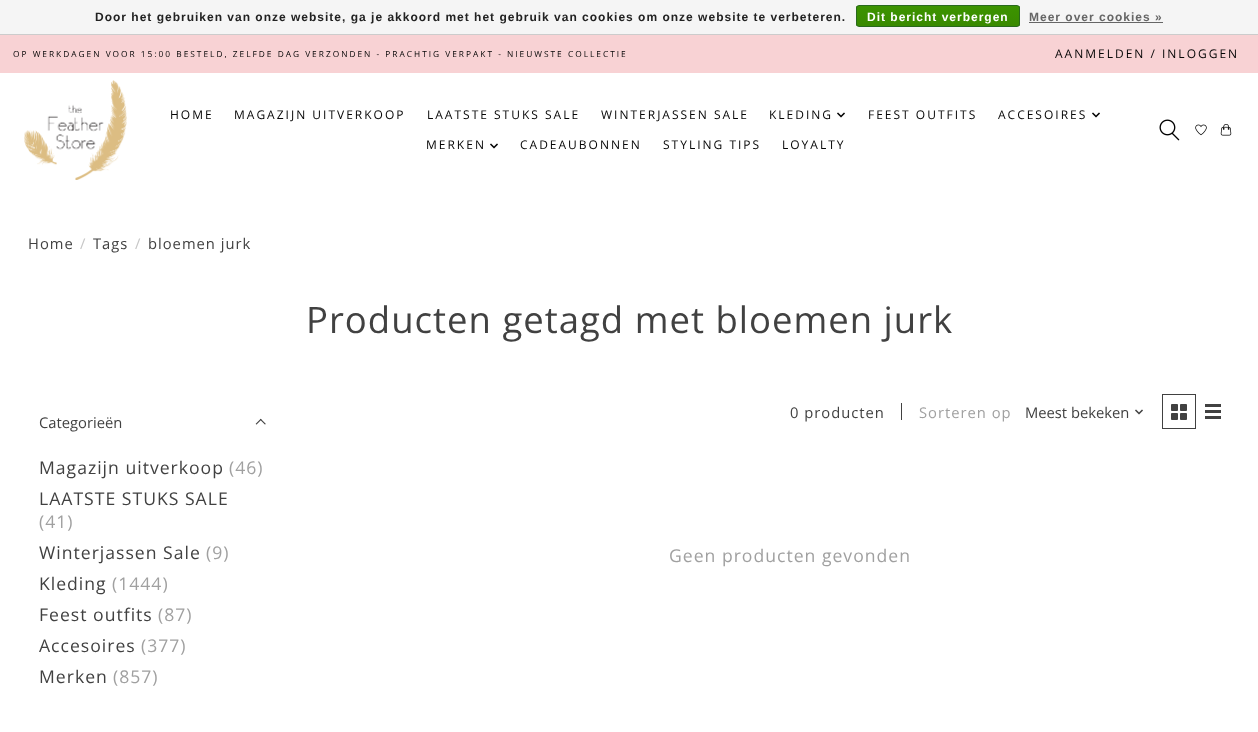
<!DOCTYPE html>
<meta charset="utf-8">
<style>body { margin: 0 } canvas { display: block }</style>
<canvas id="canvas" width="1258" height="732"></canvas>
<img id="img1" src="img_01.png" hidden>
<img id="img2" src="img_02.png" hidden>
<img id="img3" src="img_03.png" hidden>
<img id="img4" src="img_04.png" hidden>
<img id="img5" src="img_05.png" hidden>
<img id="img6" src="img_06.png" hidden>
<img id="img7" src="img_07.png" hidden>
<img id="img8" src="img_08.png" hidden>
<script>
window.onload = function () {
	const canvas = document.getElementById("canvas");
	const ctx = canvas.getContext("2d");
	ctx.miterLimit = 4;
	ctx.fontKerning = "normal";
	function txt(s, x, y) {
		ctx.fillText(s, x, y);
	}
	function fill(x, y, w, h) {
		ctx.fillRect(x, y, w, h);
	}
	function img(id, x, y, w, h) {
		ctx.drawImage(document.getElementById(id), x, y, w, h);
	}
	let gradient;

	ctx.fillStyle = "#FFFFFF";
	fill(0, 0, 1258, 732);
	ctx.fillStyle = "#F5F5F5";
	fill(0, 0, 1258, 34);
	ctx.fillStyle = "#CCCCCC";
	fill(0, 34, 1258, 1);
	ctx.save();
	ctx.beginPath();
	ctx.roundRect(856, 5, 164, 22, 3);
	ctx.clip();
	gradient = ctx.createLinearGradient(938, 6, 938, 26);
	gradient.addColorStop(0, "#3C9300");
	gradient.addColorStop(1, "#398A00");
	ctx.fillStyle = gradient;
	fill(856, 6, 164, 20);
	ctx.restore();
	ctx.beginPath();
	ctx.roundRect(856.5, 5.5, 163, 21, 2.5);
	ctx.strokeStyle = "#29691D";
	ctx.stroke();
	ctx.fillStyle = "#666666";
	fill(1029, 22, 134, 1);
	ctx.fillStyle = "#F8D2D4";
	fill(0, 35, 1258, 38);
	img("img1", 24, 80, 103, 100);
	img("img2", 837, 112, 8, 6);
	img("img2", 1092, 112, 8, 6);
	img("img2", 490, 143, 8, 6);
	img("img3", 1159, 119, 21, 22);
	img("img4", 1195, 124, 12, 12);
	img("img5", 1220, 124, 12, 12);
	img("img6", 255, 418, 11, 7);
	ctx.fillStyle = "#414141";
	fill(901, 403, 1, 17);
	img("img7", 1135, 409, 8, 6);
	ctx.strokeStyle = "#414141";
	ctx.strokeRect(1162.5, 394.5, 33, 34);
	img("img8", 1171, 404, 16, 16);
	fill(1205, 404, 16, 3);
	fill(1205, 410, 16, 3);
	fill(1205, 416, 16, 3);
	ctx.letterSpacing = "1px";
	ctx.font = "bold 12px Liberation Sans";
	ctx.fillStyle = "#222222";
	txt("Door het gebruiken van onze website, ga je akkoord met het gebruik van cookies om onze website te verbeteren.", 95, 21);
	ctx.fillStyle = "#FFFFFF";
	txt("Dit bericht verbergen", 867, 21);
	ctx.fillStyle = "#666666";
	txt("Meer over cookies »", 1029, 21);
	ctx.letterSpacing = "2px";
	ctx.font = "8.33px Open Sans";
	ctx.fillStyle = "#050505";
	txt("OP WERKDAGEN VOOR 15:00 BESTELD, ZELFDE DAG VERZONDEN - PRACHTIG VERPAKT - NIEUWSTE COLLECTIE", 13, 57);
	ctx.font = "12px Open Sans";
	txt("AANMELDEN / INLOGGEN", 1055, 58);
	txt("HOME", 170, 119);
	txt("MAGAZIJN UITVERKOOP", 234, 119);
	txt("LAATSTE STUKS SALE", 427, 119);
	txt("WINTERJASSEN SALE", 601, 119);
	txt("KLEDING", 769, 119);
	txt("FEEST OUTFITS", 868, 119);
	txt("ACCESOIRES", 998, 119);
	txt("MERKEN", 426, 149);
	txt("CADEAUBONNEN", 520, 149);
	txt("STYLING TIPS", 663, 149);
	txt("LOYALTY", 782, 149);
	ctx.letterSpacing = "1px";
	ctx.font = "14.75px Open Sans";
	ctx.fillStyle = "#414141";
	txt("Home", 28, 249);
	ctx.fillStyle = "#C6C6C6";
	txt("/", 80, 249);
	ctx.fillStyle = "#414141";
	txt("Tags", 93, 249);
	ctx.fillStyle = "#C6C6C6";
	txt("/", 135, 249);
	ctx.fillStyle = "#414141";
	txt("bloemen jurk", 148, 249);
	ctx.font = "36.5px Open Sans";
	txt("Producten getagd met bloemen jurk", 306, 333);
	ctx.letterSpacing = "0px";
	ctx.font = "14.75px Open Sans";
	txt("Categorieën", 39, 428);
	ctx.letterSpacing = "1px";
	ctx.font = "17.6px Open Sans";
	txt("Magazijn uitverkoop", 39, 474);
	ctx.fillStyle = "#A0A0A0";
	txt("(46)", 229, 474);
	ctx.fillStyle = "#414141";
	txt("LAATSTE STUKS SALE", 39, 505);
	ctx.fillStyle = "#A0A0A0";
	txt("(41)", 39, 528);
	ctx.fillStyle = "#414141";
	txt("Winterjassen Sale", 39, 559);
	ctx.fillStyle = "#A0A0A0";
	txt("(9)", 206, 559);
	ctx.fillStyle = "#414141";
	txt("Kleding", 39, 590);
	ctx.fillStyle = "#A0A0A0";
	txt("(1444)", 112, 590);
	ctx.fillStyle = "#414141";
	txt("Feest outfits", 39, 621);
	ctx.fillStyle = "#A0A0A0";
	txt("(87)", 158, 621);
	ctx.fillStyle = "#414141";
	txt("Accesoires", 39, 652);
	ctx.fillStyle = "#A0A0A0";
	txt("(377)", 141, 652);
	ctx.fillStyle = "#414141";
	txt("Merken", 39, 683);
	ctx.fillStyle = "#A0A0A0";
	txt("(857)", 113, 683);
	ctx.font = "14.75px Open Sans";
	ctx.fillStyle = "#414141";
	txt("0 producten", 790, 418);
	ctx.fillStyle = "#A0A0A0";
	txt("Sorteren op", 919, 418);
	ctx.letterSpacing = "0px";
	ctx.fillStyle = "#414141";
	txt("Meest bekeken", 1025, 418);
	ctx.letterSpacing = "1px";
	ctx.font = "17.6px Open Sans";
	ctx.fillStyle = "#A0A0A0";
	txt("Geen producten gevonden", 669, 562);
};
</script>
